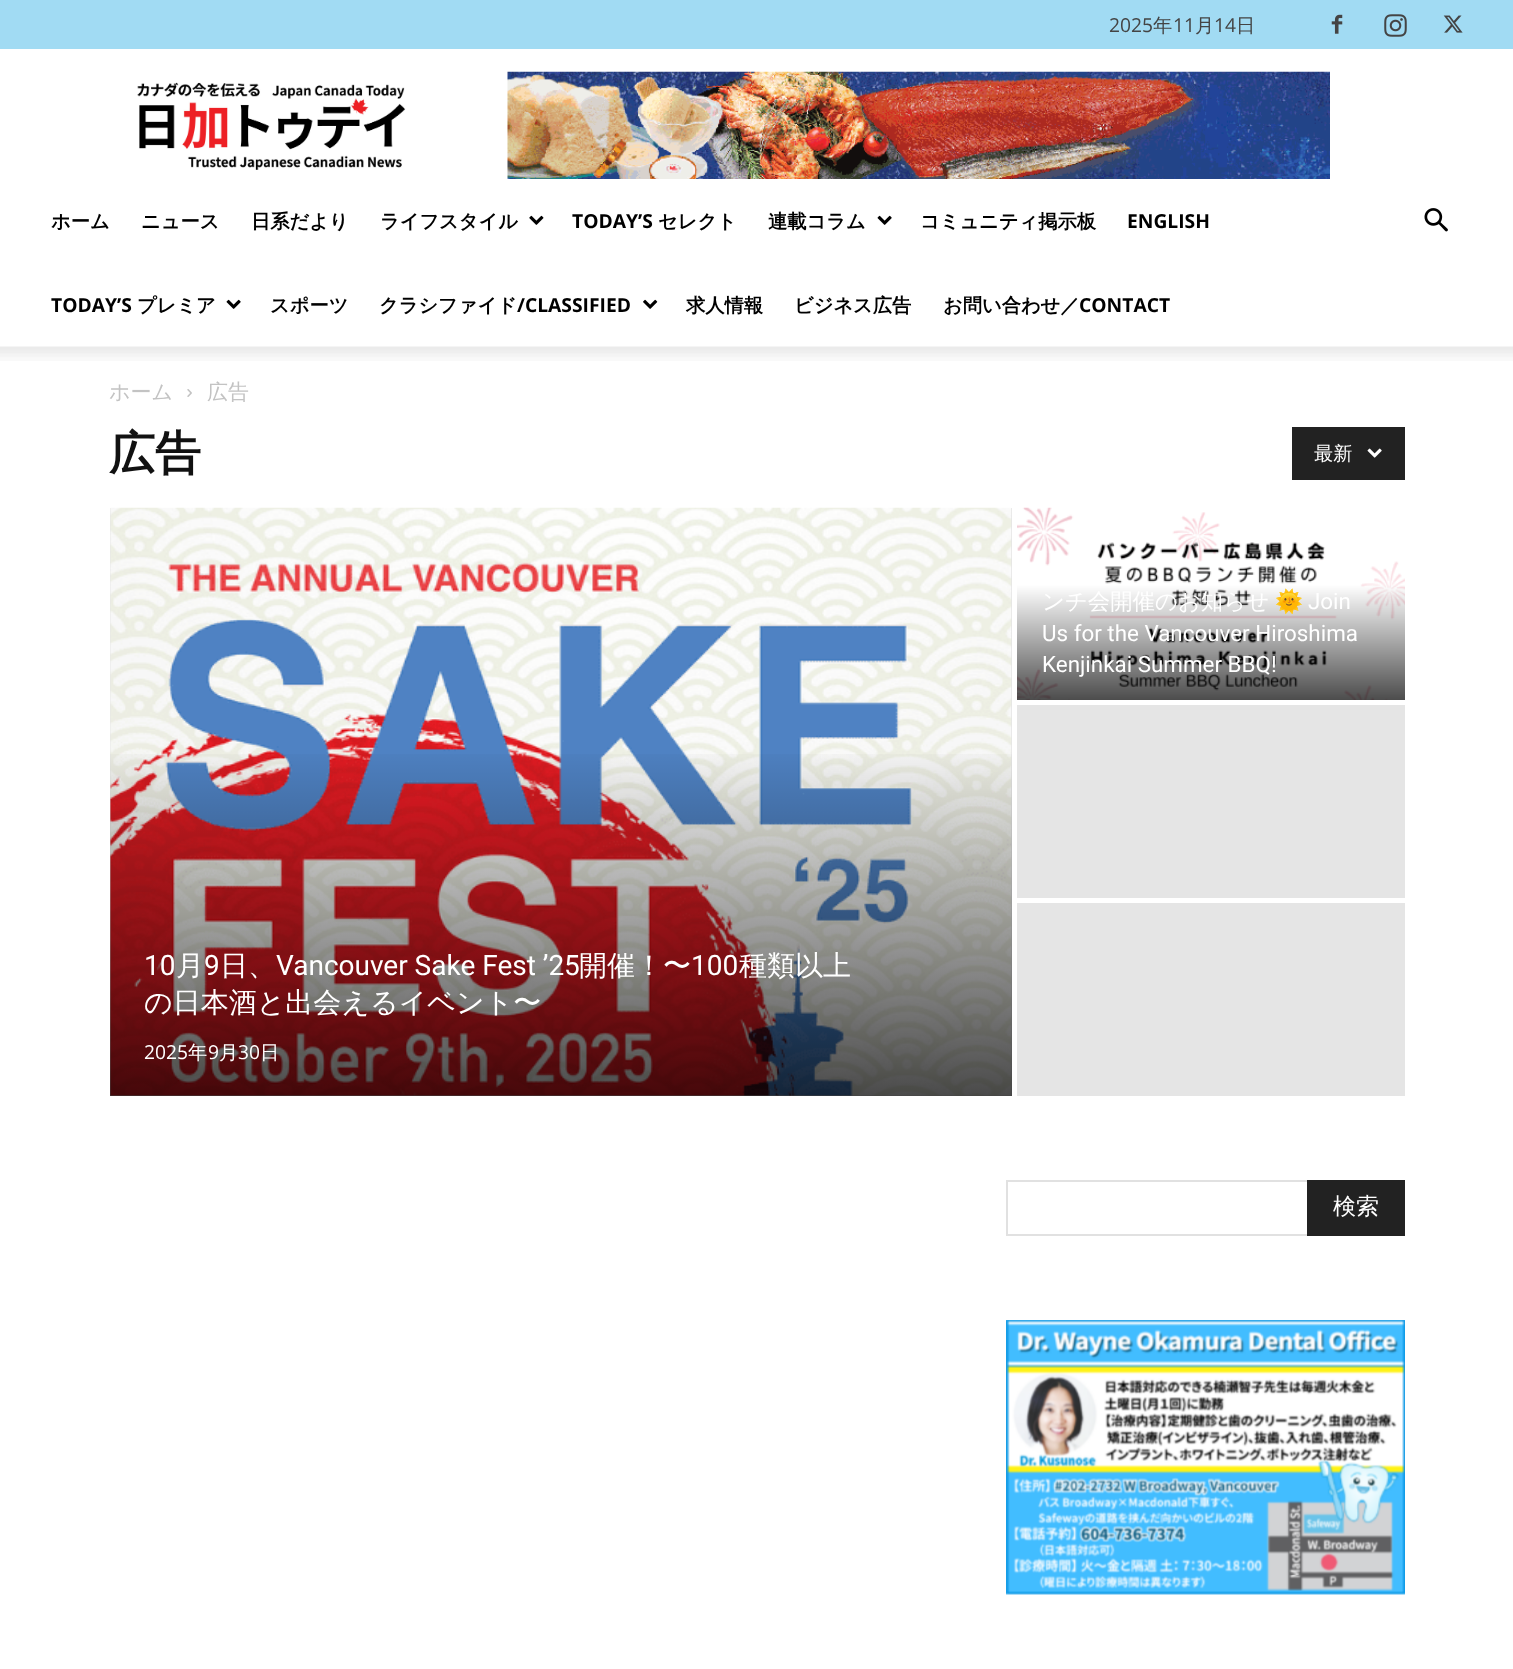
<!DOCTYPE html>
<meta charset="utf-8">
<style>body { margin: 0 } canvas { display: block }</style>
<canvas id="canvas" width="1513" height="1669"></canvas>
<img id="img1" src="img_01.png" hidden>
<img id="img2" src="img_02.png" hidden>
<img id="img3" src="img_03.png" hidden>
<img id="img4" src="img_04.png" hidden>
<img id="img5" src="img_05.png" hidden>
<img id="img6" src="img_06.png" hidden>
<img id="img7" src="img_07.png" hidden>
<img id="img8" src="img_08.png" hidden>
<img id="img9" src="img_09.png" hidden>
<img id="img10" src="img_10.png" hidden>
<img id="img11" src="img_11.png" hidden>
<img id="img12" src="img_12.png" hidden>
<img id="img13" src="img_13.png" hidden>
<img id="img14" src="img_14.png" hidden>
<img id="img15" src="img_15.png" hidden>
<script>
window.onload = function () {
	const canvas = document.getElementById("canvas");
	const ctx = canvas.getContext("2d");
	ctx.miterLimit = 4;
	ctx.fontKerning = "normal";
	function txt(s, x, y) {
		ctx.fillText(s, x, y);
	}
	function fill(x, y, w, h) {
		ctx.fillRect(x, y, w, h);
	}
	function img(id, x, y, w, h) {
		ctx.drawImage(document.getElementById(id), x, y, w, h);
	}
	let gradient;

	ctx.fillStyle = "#FFFFFF";
	fill(0, 0, 1513, 1669);
	ctx.fillStyle = "#A1DBF3";
	fill(0, 0, 1513, 49);
	img("img1", 1331, 14, 12, 20);
	img("img2", 1384, 14, 23, 23);
	img("img3", 1443, 15, 20, 18);
	img("img4", 137, 82, 269, 88);
	img("img5", 507, 71, 823, 108);
	img("img6", 529, 215, 15, 10);
	img("img7", 877, 215, 15, 10);
	img("img7", 226, 299, 15, 10);
	img("img8", 643, 299, 15, 10);
	img("img9", 1424, 208, 24, 24);
	img("img10", 0, 346, 1513, 15);
	img("img11", 187, 389, 5, 8);
	ctx.fillStyle = "#222222";
	fill(1292, 427, 113, 53);
	img("img12", 1367, 448, 15, 10);
	img("img13", 1017, 507, 388, 193);
	ctx.fillStyle = "#E5E5E5";
	fill(1017, 705, 388, 193);
	fill(1017, 903, 388, 193);
	fill(110, 508, 902, 588);
	img("img14", 110, 507, 902, 589);
	gradient = ctx.createLinearGradient(561, 508, 561, 1096);
	gradient.addColorStop(0.4, "rgba(0, 0, 0, 0)");
	gradient.addColorStop(1, "rgba(0, 0, 0, 0.7)");
	ctx.fillStyle = gradient;
	fill(110, 754, 902, 342);
	ctx.fillStyle = "#E1E1E1";
	fill(1006, 1180, 301, 2);
	fill(1006, 1234, 301, 2);
	fill(1006, 1180, 2, 56);
	ctx.fillStyle = "#222222";
	fill(1307, 1180, 98, 56);
	img("img15", 1006, 1320, 399, 275);
	ctx.font = "19.25px Open Sans";
	ctx.fillStyle = "#444444";
	txt("2025", 1109, 32);
	ctx.font = "500 19.25px WenQuanYi Zen Hei";
	txt("年", 1153, 32);
	ctx.font = "19.25px Open Sans";
	txt("11", 1173, 32);
	ctx.font = "500 19.25px WenQuanYi Zen Hei";
	txt("月", 1195, 32);
	ctx.font = "19.25px Open Sans";
	txt("14", 1214, 32);
	ctx.font = "500 19.25px WenQuanYi Zen Hei";
	txt("日", 1236, 32);
	ctx.font = "bold 19.25px WenQuanYi Zen Hei";
	ctx.fillStyle = "#000000";
	txt("ホーム", 51, 228);
	txt("ニュース", 141, 228);
	txt("日系だより", 251, 228);
	txt("ライフスタイル", 380, 228);
	ctx.font = "bold 19.25px Open Sans";
	txt("TODAY’S", 572, 228);
	ctx.font = "bold 19.25px WenQuanYi Zen Hei";
	txt("セレクト", 658, 228);
	txt("連載コラム", 768, 228);
	txt("コミュニティ掲示板", 920, 228);
	ctx.font = "bold 19.25px Open Sans";
	txt("ENGLISH", 1127, 228);
	txt("TODAY’S", 51, 312);
	ctx.font = "bold 19.25px WenQuanYi Zen Hei";
	txt("プレミア", 137, 312);
	txt("スポーツ", 270, 312);
	txt("クラシファイド", 379, 312);
	ctx.font = "bold 19.25px Open Sans";
	txt("/CLASSIFIED", 517, 312);
	ctx.font = "bold 19.25px WenQuanYi Zen Hei";
	txt("求人情報", 686, 312);
	txt("ビジネス広告", 794, 312);
	txt("お問い合わせ／", 943, 312);
	ctx.font = "bold 19.25px Open Sans";
	txt("CONTACT", 1079, 312);
	ctx.font = "500 21px WenQuanYi Zen Hei";
	ctx.fillStyle = "#C3C3C3";
	txt("ホーム", 109, 399);
	txt("広告", 207, 399);
	ctx.font = "bold 46px WenQuanYi Zen Hei";
	ctx.fillStyle = "#111111";
	txt("広告", 109, 469);
	ctx.font = "500 19.25px WenQuanYi Zen Hei";
	ctx.fillStyle = "#FFFFFF";
	txt("最新", 1314, 460);
	ctx.font = "500 22.4px WenQuanYi Zen Hei";
	txt("ンチ会開催のお知らせ", 1042, 609);
	ctx.font = "22.4px Noto Color Emoji";
	txt("🌞", 1275, 609);
	ctx.font = "22.4px Roboto";
	txt("Join", 1308, 609);
	txt("Us for the Vancouver Hiroshima", 1042, 641);
	txt("Kenjinkai Summer BBQ!", 1042, 672);
	ctx.font = "28px Roboto";
	txt("10", 144, 975);
	ctx.font = "500 28px WenQuanYi Zen Hei";
	txt("月", 176, 975);
	ctx.font = "28px Roboto";
	txt("9", 204, 975);
	ctx.font = "500 28px WenQuanYi Zen Hei";
	txt("日、", 220, 975);
	ctx.font = "28px Roboto";
	txt("Vancouver Sake Fest ’25", 276, 975);
	ctx.font = "500 28px WenQuanYi Zen Hei";
	txt("開催！〜", 579, 975);
	ctx.font = "28px Roboto";
	txt("100", 691, 975);
	ctx.font = "500 28px WenQuanYi Zen Hei";
	txt("種類以上", 739, 975);
	txt("の日本酒と出会えるイベント〜", 144, 1012);
	ctx.font = "19.25px Open Sans";
	txt("2025", 144, 1059);
	ctx.font = "500 19.25px WenQuanYi Zen Hei";
	txt("年", 188, 1059);
	ctx.font = "19.25px Open Sans";
	txt("9", 208, 1059);
	ctx.font = "500 19.25px WenQuanYi Zen Hei";
	txt("月", 219, 1059);
	ctx.font = "19.25px Open Sans";
	txt("30", 238, 1059);
	ctx.font = "500 19.25px WenQuanYi Zen Hei";
	txt("日", 260, 1059);
	ctx.font = "500 23px WenQuanYi Zen Hei";
	txt("検索", 1333, 1214);
};
</script>
